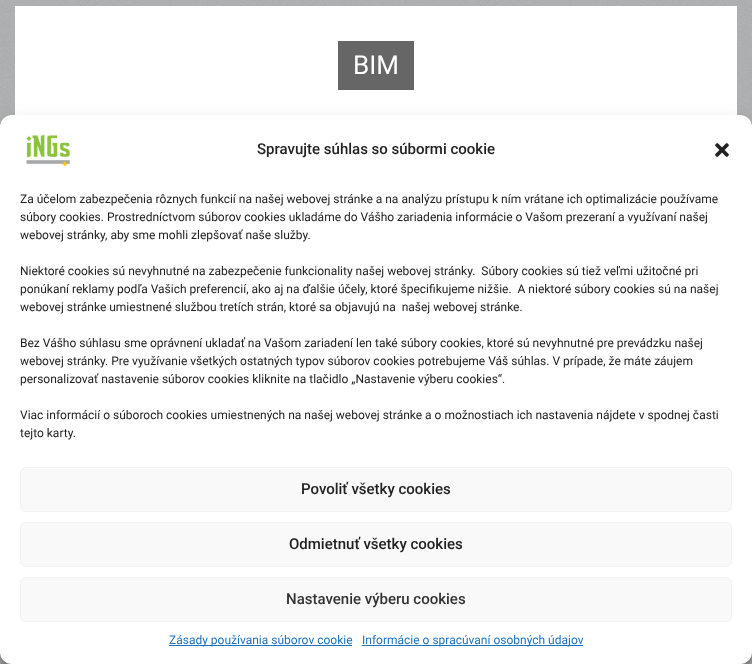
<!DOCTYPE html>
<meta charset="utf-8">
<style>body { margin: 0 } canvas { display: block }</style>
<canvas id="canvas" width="752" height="664"></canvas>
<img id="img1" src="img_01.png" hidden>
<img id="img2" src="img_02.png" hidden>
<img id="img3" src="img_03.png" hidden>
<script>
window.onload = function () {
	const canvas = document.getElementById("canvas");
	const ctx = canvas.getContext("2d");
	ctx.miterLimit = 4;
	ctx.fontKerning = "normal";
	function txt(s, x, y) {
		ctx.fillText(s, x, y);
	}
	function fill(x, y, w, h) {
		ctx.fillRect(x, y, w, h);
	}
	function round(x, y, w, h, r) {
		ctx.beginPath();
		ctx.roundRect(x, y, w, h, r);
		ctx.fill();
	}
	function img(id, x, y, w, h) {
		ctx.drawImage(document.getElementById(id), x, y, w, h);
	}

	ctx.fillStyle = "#A7A9AC";
	fill(0, 0, 752, 664);
	img("img1", 0, 0, 752, 664);
	ctx.fillStyle = "#FFFFFF";
	fill(15, 6, 722, 109);
	ctx.fillStyle = "#666666";
	fill(338, 41, 76, 49);
	ctx.fillStyle = "rgba(0, 0, 0, 0.23)";
	ctx.filter = "blur(3px)";
	ctx.beginPath();
	ctx.roundRect(0, 121, 752, 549, 12);
	ctx.fill();
	ctx.filter = "none";
	ctx.fillStyle = "rgba(0, 0, 0, 0.19)";
	ctx.filter = "blur(10px)";
	ctx.beginPath();
	ctx.roundRect(0, 125, 752, 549, 12);
	ctx.fill();
	ctx.filter = "none";
	ctx.fillStyle = "#FFFFFF";
	round(0, 115, 752, 549, 12);
	img("img2", 26, 134, 45, 33);
	img("img3", 715, 143, 14, 14);
	ctx.fillStyle = "#F9F9F9";
	ctx.beginPath();
	ctx.roundRect(20.5, 467.5, 711, 44, 5.5);
	ctx.fill();
	ctx.strokeStyle = "#F2F2F2";
	ctx.stroke();
	ctx.beginPath();
	ctx.roundRect(20.5, 522.5, 711, 44, 5.5);
	ctx.fill();
	ctx.stroke();
	ctx.beginPath();
	ctx.roundRect(20.5, 577.5, 711, 44, 5.5);
	ctx.fill();
	ctx.stroke();
	ctx.fillStyle = "#1E73BE";
	fill(169, 645, 183, 1);
	fill(362, 645, 221, 1);
	ctx.font = "26px Roboto";
	ctx.fillStyle = "#FFFFFF";
	txt("BIM", 353, 74);
	ctx.font = "500 15px Roboto";
	ctx.fillStyle = "#222222";
	txt("Spravujte súhlas so súbormi cookie", 257, 154);
	ctx.font = "12px Roboto";
	txt("Za účelom zabezpečenia rôznych funkcií na našej webovej stránke a na analýzu prístupu k ním vrátane ich optimalizácie používame", 20, 203);
	txt("súbory cookies. Prostredníctvom súborov cookies ukladáme do Vášho zariadenia informácie o Vašom prezeraní a využívaní našej", 20, 221);
	txt("webovej stránky, aby sme mohli zlepšovať naše služby.", 20, 239);
	txt("Niektoré cookies sú nevyhnutné na zabezpečenie funkcionality našej webovej stránky.  Súbory cookies sú tiež veľmi užitočné pri", 20, 275);
	txt("ponúkaní reklamy podľa Vašich preferencií, ako aj na ďalšie účely, ktoré špecifikujeme nižšie.  A niektoré súbory cookies sú na našej", 20, 293);
	txt("webovej stránke umiestnené službou tretích strán, ktoré sa objavujú na  našej webovej stránke.", 20, 311);
	txt("Bez Vášho súhlasu sme oprávnení ukladať na Vašom zariadení len také súbory cookies, ktoré sú nevyhnutné pre prevádzku našej", 20, 347);
	txt("webovej stránky. Pre využívanie všetkých ostatných typov súborov cookies potrebujeme Váš súhlas. V prípade, že máte záujem", 20, 365);
	txt("personalizovať nastavenie súborov cookies kliknite na tlačidlo „Nastavenie výberu cookies“.", 20, 383);
	txt("Viac informácií o súboroch cookies umiestnených na našej webovej stránke a o možnostiach ich nastavenia nájdete v spodnej časti", 20, 419);
	txt("tejto karty.", 20, 437);
	ctx.font = "500 15px Roboto";
	txt("Povoliť všetky cookies", 301, 494);
	txt("Odmietnuť všetky cookies", 289, 549);
	ctx.fillStyle = "#333333";
	txt("Nastavenie výberu cookies", 286, 604);
	ctx.font = "12px Roboto";
	ctx.fillStyle = "#1E73BE";
	txt("Zásady používania súborov cookie", 169, 644);
	txt("Informácie o spracúvaní osobných údajov", 362, 644);
};
</script>
